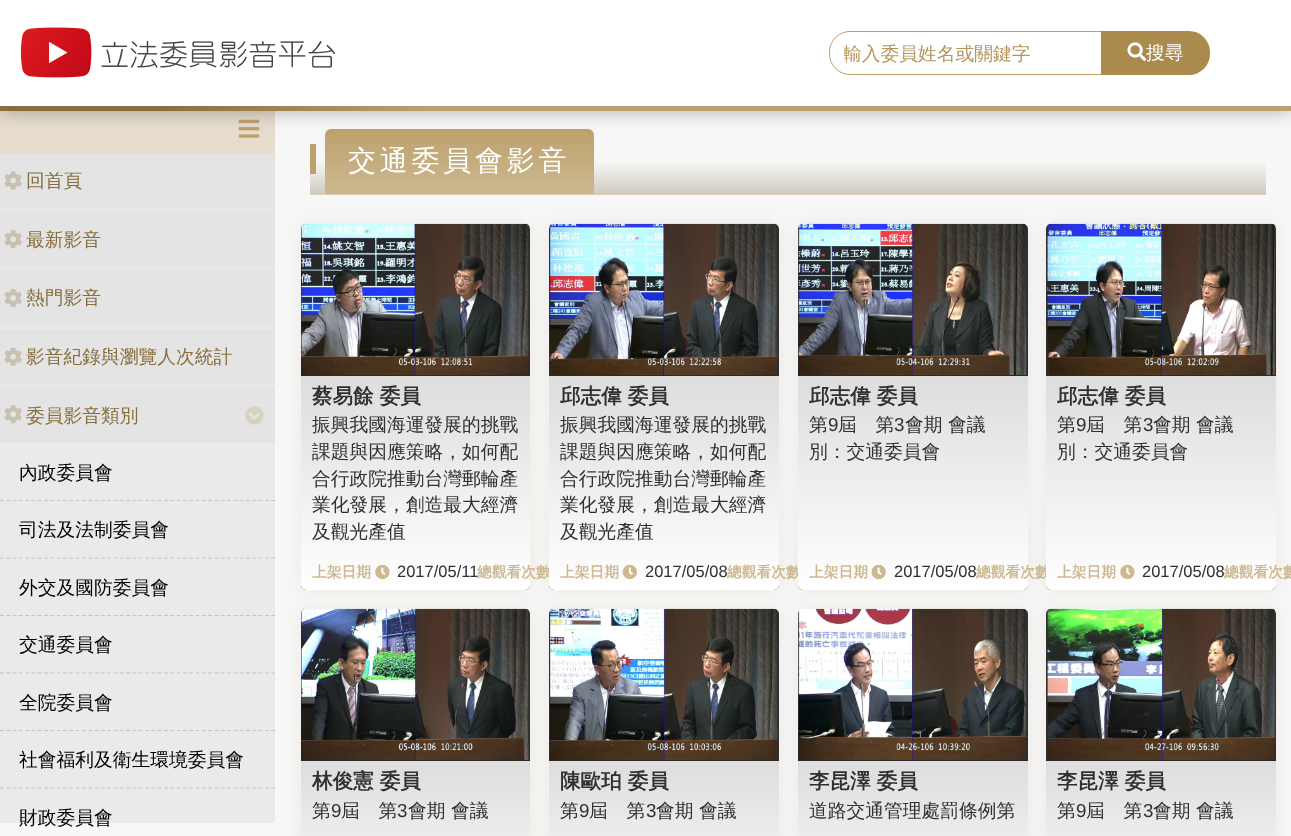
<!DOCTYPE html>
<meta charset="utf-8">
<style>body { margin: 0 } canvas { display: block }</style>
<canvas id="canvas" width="1291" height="836"></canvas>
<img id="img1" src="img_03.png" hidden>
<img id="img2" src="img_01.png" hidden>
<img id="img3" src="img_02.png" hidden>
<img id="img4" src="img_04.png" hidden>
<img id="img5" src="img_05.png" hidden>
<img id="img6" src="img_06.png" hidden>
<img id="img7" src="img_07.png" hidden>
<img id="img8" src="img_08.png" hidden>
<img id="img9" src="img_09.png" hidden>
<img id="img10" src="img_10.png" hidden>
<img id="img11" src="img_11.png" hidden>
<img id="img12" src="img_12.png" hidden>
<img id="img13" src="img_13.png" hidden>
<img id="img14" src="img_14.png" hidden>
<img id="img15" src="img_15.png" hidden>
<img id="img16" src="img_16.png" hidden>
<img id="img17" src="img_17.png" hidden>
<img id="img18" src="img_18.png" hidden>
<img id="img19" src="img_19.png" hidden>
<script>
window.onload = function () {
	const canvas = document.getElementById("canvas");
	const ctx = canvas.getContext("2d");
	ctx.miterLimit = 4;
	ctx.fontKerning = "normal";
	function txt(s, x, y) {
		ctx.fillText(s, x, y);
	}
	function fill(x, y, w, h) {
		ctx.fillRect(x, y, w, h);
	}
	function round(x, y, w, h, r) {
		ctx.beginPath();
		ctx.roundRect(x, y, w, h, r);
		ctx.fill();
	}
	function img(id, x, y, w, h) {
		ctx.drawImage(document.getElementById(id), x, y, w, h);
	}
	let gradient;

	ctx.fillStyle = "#F7F7F7";
	fill(0, 0, 1291, 836);
	ctx.fillStyle = "#E6DDCE";
	fill(0, 111, 275, 43);
	img("img1", 238, 119, 22, 19);
	gradient = ctx.createLinearGradient(788, 129, 788, 194);
	gradient.addColorStop(0.5, "#F7F7F7");
	gradient.addColorStop(1, "#D0CBC0");
	ctx.fillStyle = gradient;
	fill(310, 163, 956, 31);
	gradient = ctx.createLinearGradient(459, 129, 459, 194);
	gradient.addColorStop(0, "#BDA16D");
	gradient.addColorStop(1, "#CDB890");
	ctx.fillStyle = gradient;
	ctx.beginPath();
	ctx.roundRect(325, 129, 269, 65, [6, 6, 0, 0]);
	ctx.fill();
	ctx.fillStyle = "rgba(0, 0, 0, 0.3)";
	ctx.filter = "blur(9.5px)";
	ctx.beginPath();
	ctx.rect(0, 0, 1291, 111);
	ctx.fill();
	ctx.filter = "none";
	gradient = ctx.createLinearGradient(0, 56, 1291, 56);
	gradient.addColorStop(0.12, "#876E3D");
	gradient.addColorStop(0.34, "#BDA16D");
	ctx.fillStyle = gradient;
	fill(0, 106, 1291, 5);
	ctx.fillStyle = "#FFFFFF";
	fill(0, 0, 1291, 106);
	img("img2", 20, 27, 315, 51);
	ctx.beginPath();
	ctx.roundRect(829.5, 31.5, 273, 43, [20.5, 0, 0, 20.5]);
	ctx.strokeStyle = "#BDA16D";
	ctx.stroke();
	ctx.fillStyle = "#AA8A4D";
	ctx.beginPath();
	ctx.roundRect(1101, 31, 109, 44, [0, 21, 21, 0]);
	ctx.fill();
	img("img3", 1127, 42, 20, 19);
	ctx.fillStyle = "#EAEAEA";
	fill(0, 208, 275, 615);
	ctx.fillStyle = "#E5E5E5";
	fill(0, 209, 275, 1);
	ctx.fillStyle = "#E4E4E4";
	fill(0, 154, 275, 54);
	img("img4", 4, 171, 18, 19);
	ctx.fillStyle = "#E5E5E5";
	fill(0, 268, 275, 1);
	ctx.fillStyle = "#E4E4E4";
	fill(0, 211, 275, 55);
	img("img5", 4, 230, 18, 19);
	ctx.fillStyle = "#E5E5E5";
	fill(0, 326, 275, 1);
	ctx.fillStyle = "#E4E4E4";
	fill(0, 270, 275, 55);
	img("img6", 4, 289, 18, 18);
	ctx.fillStyle = "#E5E5E5";
	fill(0, 385, 275, 1);
	ctx.fillStyle = "#E4E4E4";
	fill(0, 329, 275, 55);
	img("img7", 4, 347, 18, 19);
	fill(0, 388, 275, 55);
	img("img5", 4, 405, 18, 19);
	img("img8", 245, 406, 19, 19);
	ctx.beginPath();
	ctx.moveTo(0, 500.5);
	ctx.lineTo(275, 500.5);
	ctx.strokeStyle = "#C4C4C4";
	ctx.lineWidth = 1.2;
	ctx.setLineDash([3.75, 2.56]);
	ctx.stroke();
	ctx.beginPath();
	ctx.moveTo(0, 558);
	ctx.lineTo(275, 558);
	ctx.stroke();
	ctx.beginPath();
	ctx.moveTo(0, 615.5);
	ctx.lineTo(275, 615.5);
	ctx.stroke();
	ctx.beginPath();
	ctx.moveTo(0, 673);
	ctx.lineTo(275, 673);
	ctx.stroke();
	ctx.beginPath();
	ctx.moveTo(0, 730.5);
	ctx.lineTo(275, 730.5);
	ctx.stroke();
	ctx.beginPath();
	ctx.moveTo(0, 788);
	ctx.lineTo(275, 788);
	ctx.stroke();
	ctx.fillStyle = "#DACCB2";
	fill(310, 194, 956, 1);
	ctx.fillStyle = "#BDA16D";
	fill(310, 144, 6, 30);
	ctx.fillStyle = "rgba(135, 110, 61, 0.1)";
	ctx.filter = "blur(9px)";
	ctx.beginPath();
	ctx.roundRect(301, 224, 229, 366, 5);
	ctx.fill();
	ctx.filter = "none";
	ctx.fillStyle = "#303030";
	round(301, 224, 229, 366, 5);
	img("img9", 301, 223, 228, 152);
	ctx.fillStyle = "#2A2A2A";
	fill(301, 375, 229, 1);
	gradient = ctx.createLinearGradient(416, 376, 416, 590);
	gradient.addColorStop(0, "#DDDDDD");
	gradient.addColorStop(1, "#FFFFFF");
	ctx.fillStyle = gradient;
	ctx.beginPath();
	ctx.roundRect(301, 376, 229, 214, [0, 0, 5, 5]);
	ctx.fill();
	img("img10", 375, 564, 15, 16);
	ctx.fillStyle = "rgba(135, 110, 61, 0.1)";
	ctx.filter = "blur(9px)";
	ctx.beginPath();
	ctx.roundRect(549, 224, 230, 366, 5);
	ctx.fill();
	ctx.filter = "none";
	ctx.save();
	ctx.beginPath();
	ctx.rect(844, 43, 242, 23);
	ctx.clip();
	ctx.font = "500 18.75px WenQuanYi Zen Hei";
	ctx.fillStyle = "#B5965C";
	txt("輸入委員姓名或關鍵字", 843, 60);
	ctx.restore();
	ctx.font = "500 18.75px WenQuanYi Zen Hei";
	ctx.fillStyle = "#FFFFFF";
	txt("搜尋", 1146, 59);
	ctx.fillStyle = "#876E3D";
	txt("回首頁", 26, 187);
	txt("最新影音", 26, 246);
	txt("熱門影音", 26, 304);
	txt("影音紀錄與瀏覽人次統計", 26, 363);
	txt("委員影音類別", 26, 422);
	ctx.fillStyle = "#000000";
	txt("內政委員會", 19, 479);
	txt("司法及法制委員會", 19, 536);
	txt("外交及國防委員會", 19, 594);
	txt("交通委員會", 19, 651);
	txt("全院委員會", 19, 709);
	txt("社會福利及衛生環境委員會", 19, 766);
	txt("財政委員會", 19, 824);
	ctx.letterSpacing = "3.75px";
	ctx.font = "500 28px WenQuanYi Zen Hei";
	ctx.fillStyle = "#FFFFFF";
	txt("交通委員會影音", 348, 170);
	ctx.letterSpacing = "0px";
	ctx.font = "bold 20.5px WenQuanYi Zen Hei";
	ctx.fillStyle = "#303030";
	txt("蔡易餘 委員", 312, 403);
	ctx.font = "500 18.75px WenQuanYi Zen Hei";
	txt("振興我國海運發展的挑戰", 312, 431);
	txt("課題與因應策略，如何配", 312, 458);
	txt("合行政院推動台灣郵輪產", 312, 485);
	txt("業化發展，創造最大經濟", 312, 511);
	txt("及觀光產值", 312, 538);
	ctx.font = "bold 14.75px WenQuanYi Zen Hei";
	ctx.fillStyle = "#CDB890";
	txt("上架日期", 312, 577);
	ctx.font = "16.5px Liberation Sans";
	ctx.fillStyle = "#303030";
	txt("2017/05/11", 397, 577);
	ctx.font = "bold 14.75px WenQuanYi Zen Hei";
	ctx.fillStyle = "#CDB890";
	txt("總觀看次數", 477, 577);
	ctx.fillStyle = "#303030";
	round(549, 224, 230, 366, 5);
	img("img11", 550, 223, 228, 152);
	ctx.fillStyle = "#2A2A2A";
	fill(549, 375, 230, 1);
	gradient = ctx.createLinearGradient(664, 376, 664, 590);
	gradient.addColorStop(0, "#DDDDDD");
	gradient.addColorStop(1, "#FFFFFF");
	ctx.fillStyle = gradient;
	ctx.beginPath();
	ctx.roundRect(549, 376, 230, 214, [0, 0, 5, 5]);
	ctx.fill();
	ctx.font = "bold 20.5px WenQuanYi Zen Hei";
	ctx.fillStyle = "#303030";
	txt("邱志偉 委員", 560, 403);
	ctx.font = "500 18.75px WenQuanYi Zen Hei";
	txt("振興我國海運發展的挑戰", 560, 431);
	txt("課題與因應策略，如何配", 560, 458);
	txt("合行政院推動台灣郵輪產", 560, 485);
	txt("業化發展，創造最大經濟", 560, 511);
	txt("及觀光產值", 560, 538);
	img("img12", 622, 564, 15, 16);
	ctx.font = "bold 14.75px WenQuanYi Zen Hei";
	ctx.fillStyle = "#CDB890";
	txt("上架日期", 560, 577);
	ctx.font = "16.5px Liberation Sans";
	ctx.fillStyle = "#303030";
	txt("2017/05/08", 645, 577);
	ctx.font = "bold 14.75px WenQuanYi Zen Hei";
	ctx.fillStyle = "#CDB890";
	txt("總觀看次數", 727, 577);
	ctx.fillStyle = "rgba(135, 110, 61, 0.1)";
	ctx.filter = "blur(9px)";
	ctx.beginPath();
	ctx.roundRect(798, 224, 230, 366, 5);
	ctx.fill();
	ctx.filter = "none";
	ctx.fillStyle = "#303030";
	round(798, 224, 230, 366, 5);
	img("img13", 798, 223, 229, 152);
	ctx.fillStyle = "#2A2A2A";
	fill(798, 375, 230, 1);
	gradient = ctx.createLinearGradient(913, 376, 913, 590);
	gradient.addColorStop(0, "#DDDDDD");
	gradient.addColorStop(1, "#FFFFFF");
	ctx.fillStyle = gradient;
	ctx.beginPath();
	ctx.roundRect(798, 376, 230, 214, [0, 0, 5, 5]);
	ctx.fill();
	ctx.font = "bold 20.5px WenQuanYi Zen Hei";
	ctx.fillStyle = "#303030";
	txt("邱志偉 委員", 809, 403);
	ctx.font = "500 18.75px WenQuanYi Zen Hei";
	txt("第", 809, 431);
	ctx.font = "18.75px Liberation Sans";
	txt("9", 828, 431);
	ctx.font = "500 18.75px WenQuanYi Zen Hei";
	txt("屆　第", 838, 431);
	ctx.font = "18.75px Liberation Sans";
	txt("3", 894, 431);
	ctx.font = "500 18.75px WenQuanYi Zen Hei";
	txt("會期 會議", 905, 431);
	txt("別：交通委員會", 809, 458);
	img("img14", 871, 564, 15, 16);
	ctx.font = "bold 14.75px WenQuanYi Zen Hei";
	ctx.fillStyle = "#CDB890";
	txt("上架日期", 809, 577);
	ctx.font = "16.5px Liberation Sans";
	ctx.fillStyle = "#303030";
	txt("2017/05/08", 894, 577);
	ctx.font = "bold 14.75px WenQuanYi Zen Hei";
	ctx.fillStyle = "#CDB890";
	txt("總觀看次數", 976, 577);
	ctx.fillStyle = "rgba(135, 110, 61, 0.1)";
	ctx.filter = "blur(9px)";
	ctx.beginPath();
	ctx.roundRect(1046, 224, 230, 366, 5);
	ctx.fill();
	ctx.filter = "none";
	ctx.fillStyle = "#303030";
	round(1046, 224, 230, 366, 5);
	img("img15", 1047, 223, 228, 152);
	ctx.fillStyle = "#2A2A2A";
	fill(1046, 375, 230, 1);
	gradient = ctx.createLinearGradient(1161, 376, 1161, 590);
	gradient.addColorStop(0, "#DDDDDD");
	gradient.addColorStop(1, "#FFFFFF");
	ctx.fillStyle = gradient;
	ctx.beginPath();
	ctx.roundRect(1046, 376, 230, 214, [0, 0, 5, 5]);
	ctx.fill();
	ctx.font = "bold 20.5px WenQuanYi Zen Hei";
	ctx.fillStyle = "#303030";
	txt("邱志偉 委員", 1057, 403);
	ctx.font = "500 18.75px WenQuanYi Zen Hei";
	txt("第", 1057, 431);
	ctx.font = "18.75px Liberation Sans";
	txt("9", 1076, 431);
	ctx.font = "500 18.75px WenQuanYi Zen Hei";
	txt("屆　第", 1086, 431);
	ctx.font = "18.75px Liberation Sans";
	txt("3", 1143, 431);
	ctx.font = "500 18.75px WenQuanYi Zen Hei";
	txt("會期 會議", 1153, 431);
	txt("別：交通委員會", 1057, 458);
	img("img10", 1120, 564, 15, 16);
	ctx.font = "bold 14.75px WenQuanYi Zen Hei";
	ctx.fillStyle = "#CDB890";
	txt("上架日期", 1057, 577);
	ctx.font = "16.5px Liberation Sans";
	ctx.fillStyle = "#303030";
	txt("2017/05/08", 1142, 577);
	ctx.font = "bold 14.75px WenQuanYi Zen Hei";
	ctx.fillStyle = "#CDB890";
	txt("總觀看次數", 1224, 577);
	ctx.fillStyle = "rgba(135, 110, 61, 0.1)";
	ctx.filter = "blur(9px)";
	ctx.beginPath();
	ctx.roundRect(301, 609, 229, 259, 5);
	ctx.fill();
	ctx.filter = "none";
	ctx.fillStyle = "#303030";
	ctx.beginPath();
	ctx.roundRect(301, 609, 229, 227, [5, 5, 0, 0]);
	ctx.fill();
	img("img16", 301, 608, 228, 152);
	ctx.fillStyle = "#2A2A2A";
	fill(301, 760, 229, 1);
	gradient = ctx.createLinearGradient(416, 761, 416, 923);
	gradient.addColorStop(0, "#DDDDDD");
	gradient.addColorStop(1, "#FFFFFF");
	ctx.fillStyle = gradient;
	fill(301, 761, 229, 75);
	ctx.font = "bold 20.5px WenQuanYi Zen Hei";
	ctx.fillStyle = "#303030";
	txt("林俊憲 委員", 312, 788);
	ctx.font = "500 18.75px WenQuanYi Zen Hei";
	txt("第", 312, 817);
	ctx.font = "18.75px Liberation Sans";
	txt("9", 331, 817);
	ctx.font = "500 18.75px WenQuanYi Zen Hei";
	txt("屆　第", 341, 817);
	ctx.font = "18.75px Liberation Sans";
	txt("3", 397, 817);
	ctx.font = "500 18.75px WenQuanYi Zen Hei";
	txt("會期 會議", 408, 817);
	ctx.fillStyle = "rgba(135, 110, 61, 0.1)";
	ctx.filter = "blur(9px)";
	ctx.beginPath();
	ctx.roundRect(549, 609, 230, 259, 5);
	ctx.fill();
	ctx.filter = "none";
	ctx.fillStyle = "#303030";
	ctx.beginPath();
	ctx.roundRect(549, 609, 230, 227, [5, 5, 0, 0]);
	ctx.fill();
	img("img17", 550, 608, 228, 152);
	ctx.fillStyle = "#2A2A2A";
	fill(549, 760, 230, 1);
	gradient = ctx.createLinearGradient(664, 761, 664, 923);
	gradient.addColorStop(0, "#DDDDDD");
	gradient.addColorStop(1, "#FFFFFF");
	ctx.fillStyle = gradient;
	fill(549, 761, 230, 75);
	ctx.font = "bold 20.5px WenQuanYi Zen Hei";
	ctx.fillStyle = "#303030";
	txt("陳歐珀 委員", 560, 788);
	ctx.font = "500 18.75px WenQuanYi Zen Hei";
	txt("第", 560, 817);
	ctx.font = "18.75px Liberation Sans";
	txt("9", 579, 817);
	ctx.font = "500 18.75px WenQuanYi Zen Hei";
	txt("屆　第", 589, 817);
	ctx.font = "18.75px Liberation Sans";
	txt("3", 646, 817);
	ctx.font = "500 18.75px WenQuanYi Zen Hei";
	txt("會期 會議", 656, 817);
	ctx.fillStyle = "rgba(135, 110, 61, 0.1)";
	ctx.filter = "blur(9px)";
	ctx.beginPath();
	ctx.roundRect(798, 609, 230, 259, 5);
	ctx.fill();
	ctx.filter = "none";
	ctx.fillStyle = "#303030";
	ctx.beginPath();
	ctx.roundRect(798, 609, 230, 227, [5, 5, 0, 0]);
	ctx.fill();
	img("img18", 798, 608, 229, 152);
	ctx.fillStyle = "#2A2A2A";
	fill(798, 760, 230, 1);
	gradient = ctx.createLinearGradient(913, 761, 913, 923);
	gradient.addColorStop(0, "#DDDDDD");
	gradient.addColorStop(1, "#FFFFFF");
	ctx.fillStyle = gradient;
	fill(798, 761, 230, 75);
	ctx.font = "bold 20.5px WenQuanYi Zen Hei";
	ctx.fillStyle = "#303030";
	txt("李昆澤 委員", 809, 788);
	ctx.font = "500 18.75px WenQuanYi Zen Hei";
	txt("道路交通管理處罰條例第", 809, 817);
	ctx.fillStyle = "rgba(135, 110, 61, 0.1)";
	ctx.filter = "blur(9px)";
	ctx.beginPath();
	ctx.roundRect(1046, 609, 230, 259, 5);
	ctx.fill();
	ctx.filter = "none";
	ctx.fillStyle = "#303030";
	ctx.beginPath();
	ctx.roundRect(1046, 609, 230, 227, [5, 5, 0, 0]);
	ctx.fill();
	img("img19", 1047, 608, 228, 152);
	ctx.fillStyle = "#2A2A2A";
	fill(1046, 760, 230, 1);
	gradient = ctx.createLinearGradient(1161, 761, 1161, 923);
	gradient.addColorStop(0, "#DDDDDD");
	gradient.addColorStop(1, "#FFFFFF");
	ctx.fillStyle = gradient;
	fill(1046, 761, 230, 75);
	ctx.font = "bold 20.5px WenQuanYi Zen Hei";
	ctx.fillStyle = "#303030";
	txt("李昆澤 委員", 1057, 788);
	ctx.font = "500 18.75px WenQuanYi Zen Hei";
	txt("第", 1057, 817);
	ctx.font = "18.75px Liberation Sans";
	txt("9", 1076, 817);
	ctx.font = "500 18.75px WenQuanYi Zen Hei";
	txt("屆　第", 1086, 817);
	ctx.font = "18.75px Liberation Sans";
	txt("3", 1143, 817);
	ctx.font = "500 18.75px WenQuanYi Zen Hei";
	txt("會期 會議", 1153, 817);
};
</script>
